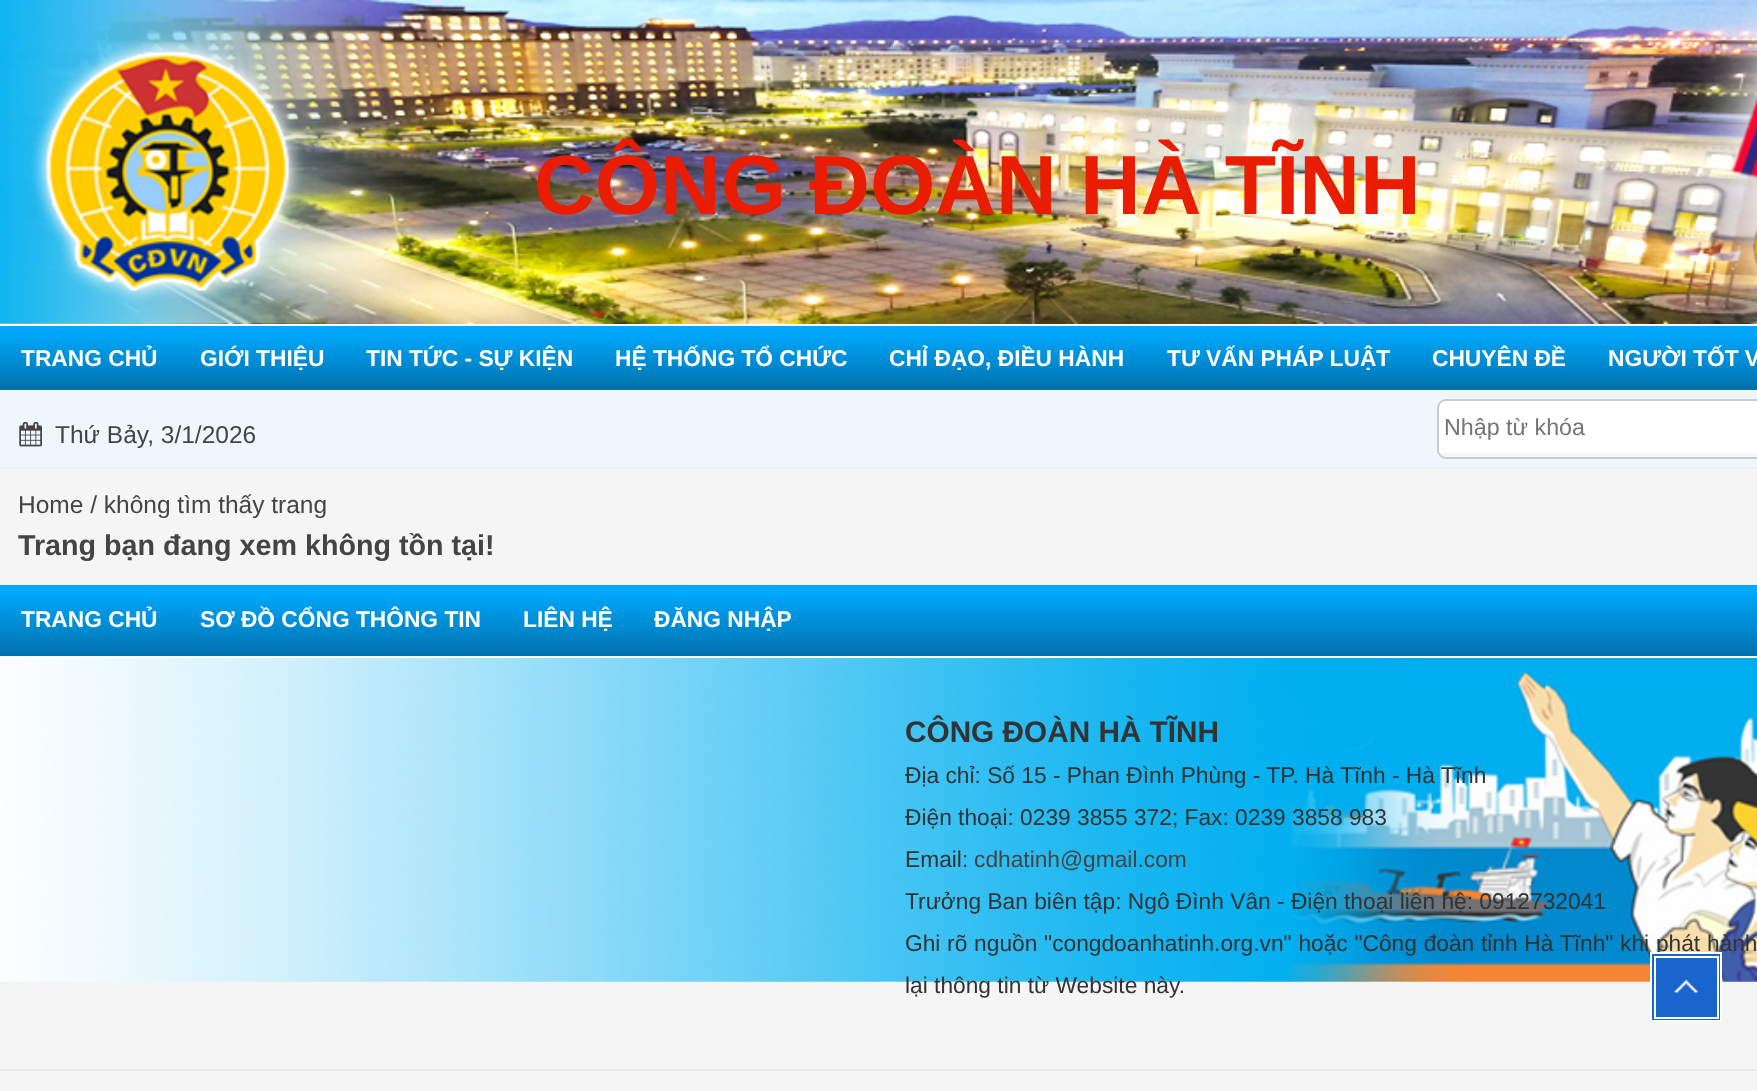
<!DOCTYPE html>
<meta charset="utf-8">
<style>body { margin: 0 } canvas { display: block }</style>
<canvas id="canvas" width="1757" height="1091"></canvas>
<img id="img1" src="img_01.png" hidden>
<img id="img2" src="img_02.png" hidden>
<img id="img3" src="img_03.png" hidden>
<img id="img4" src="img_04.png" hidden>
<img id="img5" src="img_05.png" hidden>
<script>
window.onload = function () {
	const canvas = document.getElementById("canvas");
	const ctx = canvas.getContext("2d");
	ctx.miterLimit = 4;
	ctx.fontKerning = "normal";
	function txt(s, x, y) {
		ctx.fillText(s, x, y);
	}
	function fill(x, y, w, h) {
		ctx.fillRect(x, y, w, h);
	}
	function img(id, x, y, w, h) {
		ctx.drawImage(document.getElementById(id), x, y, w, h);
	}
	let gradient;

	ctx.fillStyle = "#F5F5F5";
	fill(0, 0, 1757, 1091);
	img("img1", 0, 0, 1757, 324);
	img("img2", 0, 0, 1757, 324);
	gradient = ctx.createLinearGradient(963, 325, 963, 390);
	gradient.addColorStop(0.1, "#00A9FF");
	gradient.addColorStop(1, "#0071AA");
	ctx.fillStyle = gradient;
	fill(0, 326, 1757, 64);
	ctx.fillStyle = "#FFFFFF";
	fill(0, 324, 1757, 2);
	ctx.fillStyle = "#EFF7FC";
	fill(0, 390, 1757, 77);
	ctx.fillStyle = "#EEEEEE";
	fill(0, 467, 1757, 2);
	img("img3", 19, 421, 23, 26);
	ctx.beginPath();
	ctx.roundRect(1438, 400, 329, 58, 8);
	ctx.strokeStyle = "#CCCCCC";
	ctx.lineWidth = 2;
	ctx.stroke();
	ctx.save();
	ctx.beginPath();
	ctx.roundRect(1439, 401, 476, 56, 7);
	ctx.clip();
	ctx.fillStyle = "#FFFFFF";
	ctx.beginPath();
	ctx.roundRect(1439, 401, 318, 52, [7, 0, 0, 0]);
	ctx.fill();
	ctx.restore();
	gradient = ctx.createLinearGradient(963, 584, 963, 656);
	gradient.addColorStop(0.1, "#00A9FF");
	gradient.addColorStop(1, "#0071AA");
	ctx.fillStyle = gradient;
	fill(0, 585, 1757, 71);
	ctx.fillStyle = "#FFFFFF";
	fill(0, 656, 1757, 2);
	img("img4", 0, 658, 1757, 324);
	ctx.fillStyle = "#ECECEC";
	fill(0, 1069, 1757, 2);
	ctx.font = "bold 84px Liberation Sans";
	ctx.fillStyle = "#E81D02";
	txt("CÔNG ĐOÀN HÀ TĨNH", 534, 214);
	ctx.font = "bold 22.75px Liberation Sans";
	ctx.fillStyle = "#FFFFFF";
	txt("TRANG CHỦ", 21, 366);
	txt("GIỚI THIỆU", 200, 366);
	txt("TIN TỨC - SỰ KIỆN", 366, 366);
	txt("HỆ THỐNG TỔ CHỨC", 615, 366);
	txt("CHỈ ĐẠO, ĐIỀU HÀNH", 889, 366);
	txt("TƯ VẤN PHÁP LUẬT", 1167, 366);
	txt("CHUYÊN ĐỀ", 1432, 366);
	txt("NGƯỜI TỐT V", 1608, 366);
	ctx.font = "24.5px Liberation Sans";
	ctx.fillStyle = "#444444";
	txt("Thứ Bảy, 3/1/2026", 55, 443);
	ctx.font = "23.25px Liberation Sans";
	ctx.fillStyle = "#757575";
	txt("Nhập từ khóa", 1444, 435);
	ctx.font = "24.5px Liberation Sans";
	ctx.fillStyle = "#444444";
	txt("Home / không tìm thấy trang", 18, 513);
	ctx.font = "bold 28.7px Liberation Sans";
	txt("Trang bạn đang xem không tồn tại!", 18, 555);
	ctx.font = "bold 22.75px Liberation Sans";
	ctx.fillStyle = "#FFFFFF";
	txt("TRANG CHỦ", 21, 627);
	txt("SƠ ĐỒ CỔNG THÔNG TIN", 200, 627);
	txt("LIÊN HỆ", 523, 627);
	txt("ĐĂNG NHẬP", 654, 627);
	ctx.font = "bold 29.75px Liberation Sans";
	ctx.fillStyle = "#333333";
	txt("CÔNG ĐOÀN HÀ TĨNH", 905, 742);
	ctx.font = "22.75px Liberation Sans";
	txt("Địa chỉ: Số 15 - Phan Đình Phùng - TP. Hà Tĩnh - Hà Tĩnh", 905, 783);
	txt("Điện thoại: 0239 3855 372; Fax: 0239 3858 983", 905, 825);
	txt("Email:", 905, 867);
	ctx.fillStyle = "#444444";
	txt("cdhatinh@gmail.com", 974, 867);
	ctx.fillStyle = "#333333";
	txt("Trưởng Ban biên tập: Ngô Đình Vân - Điện thoại liên hệ: 0912732041", 905, 909);
	ctx.wordSpacing = "0.4px";
	txt("Ghi rõ nguồn \"congdoanhatinh.org.vn\" hoặc \"Công đoàn tỉnh Hà Tĩnh\" khi phát hành", 905, 951);
	ctx.wordSpacing = "0px";
	txt("lại thông tin từ Website này.", 905, 993);
	ctx.fillStyle = "#1765CD";
	fill(1652, 954, 68, 66);
	img("img5", 1674, 978, 24, 15);
	ctx.strokeStyle = "#FFFFFF";
	ctx.strokeRect(1651, 953, 70, 68);
	ctx.strokeRect(1655, 957, 63, 61);
};
</script>
